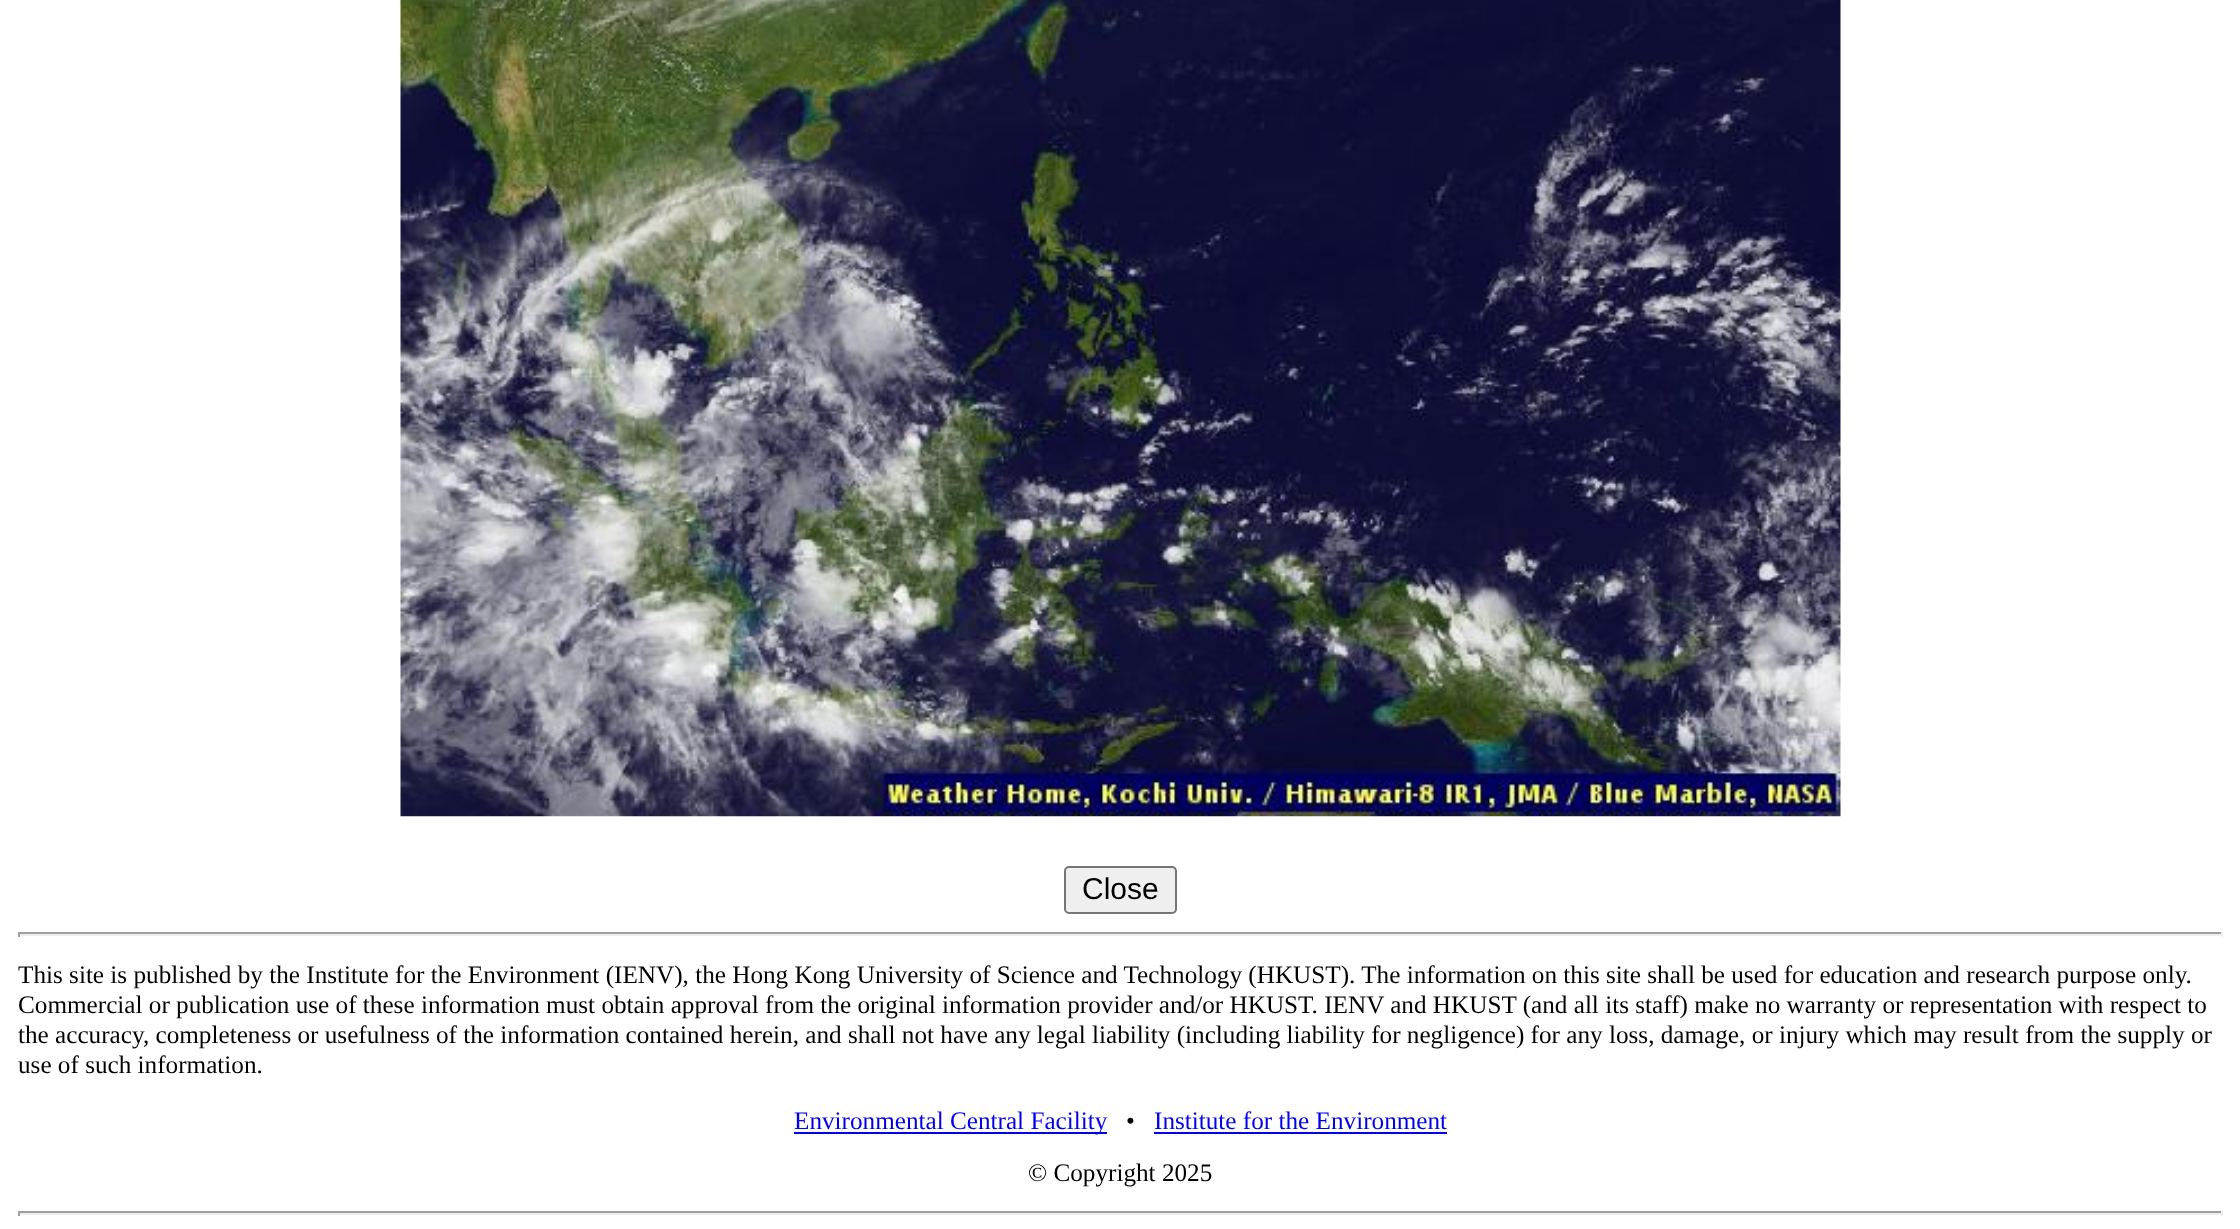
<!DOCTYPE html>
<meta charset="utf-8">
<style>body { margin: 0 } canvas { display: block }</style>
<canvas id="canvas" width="2240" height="1229"></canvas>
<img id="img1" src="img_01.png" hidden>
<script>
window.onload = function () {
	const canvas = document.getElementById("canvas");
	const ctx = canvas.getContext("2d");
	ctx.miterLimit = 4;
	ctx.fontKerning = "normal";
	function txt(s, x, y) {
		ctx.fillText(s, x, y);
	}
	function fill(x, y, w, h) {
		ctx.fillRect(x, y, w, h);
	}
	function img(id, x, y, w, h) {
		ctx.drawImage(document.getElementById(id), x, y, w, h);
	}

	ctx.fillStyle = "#FFFFFF";
	fill(0, 0, 2240, 1229);
	img("img1", 400, 0, 1441, 817);
	ctx.fillStyle = "#EFEFEF";
	ctx.beginPath();
	ctx.roundRect(1065, 867, 111, 46, 4);
	ctx.fill();
	ctx.strokeStyle = "#767676";
	ctx.lineWidth = 2;
	ctx.stroke();
	ctx.fillStyle = "#9F9F9F";
	fill(18, 932, 2205, 2);
	ctx.fillStyle = "#EEEEEE";
	fill(2221, 932, 2, 5);
	fill(18, 934, 2205, 2);
	ctx.fillStyle = "#9F9F9F";
	fill(18, 932, 2, 5);
	ctx.fillStyle = "#0000EE";
	fill(794, 1132, 313, 2);
	fill(1154, 1132, 293, 2);
	ctx.fillStyle = "#9F9F9F";
	fill(18, 1211, 2205, 2);
	ctx.fillStyle = "#EEEEEE";
	fill(2221, 1211, 2, 5);
	fill(18, 1213, 2205, 2);
	ctx.fillStyle = "#9F9F9F";
	fill(18, 1211, 2, 5);
	ctx.font = "30px Liberation Sans";
	ctx.fillStyle = "#000000";
	txt("Close", 1082, 899);
	ctx.font = "25.2px Liberation Serif";
	txt("This site is published by the Institute for the Environment (IENV), the Hong Kong University of Science and Technology (HKUST). The information on this site shall be used for education and research purpose only.", 18, 983);
	txt("Commercial or publication use of these information must obtain approval from the original information provider and/or HKUST. IENV and HKUST (and all its staff) make no warranty or representation with respect to", 18, 1013);
	txt("the accuracy, completeness or usefulness of the information contained herein, and shall not have any legal liability (including liability for negligence) for any loss, damage, or injury which may result from the supply or", 18, 1043);
	txt("use of such information.", 18, 1073);
	ctx.fillStyle = "#0000EE";
	txt("Environmental Central Facility", 794, 1129);
	ctx.fillStyle = "#000000";
	txt("•", 1126, 1129);
	ctx.fillStyle = "#0000EE";
	txt("Institute for the Environment", 1154, 1129);
	ctx.fillStyle = "#000000";
	txt("© Copyright 2025", 1028, 1181);
};
</script>
